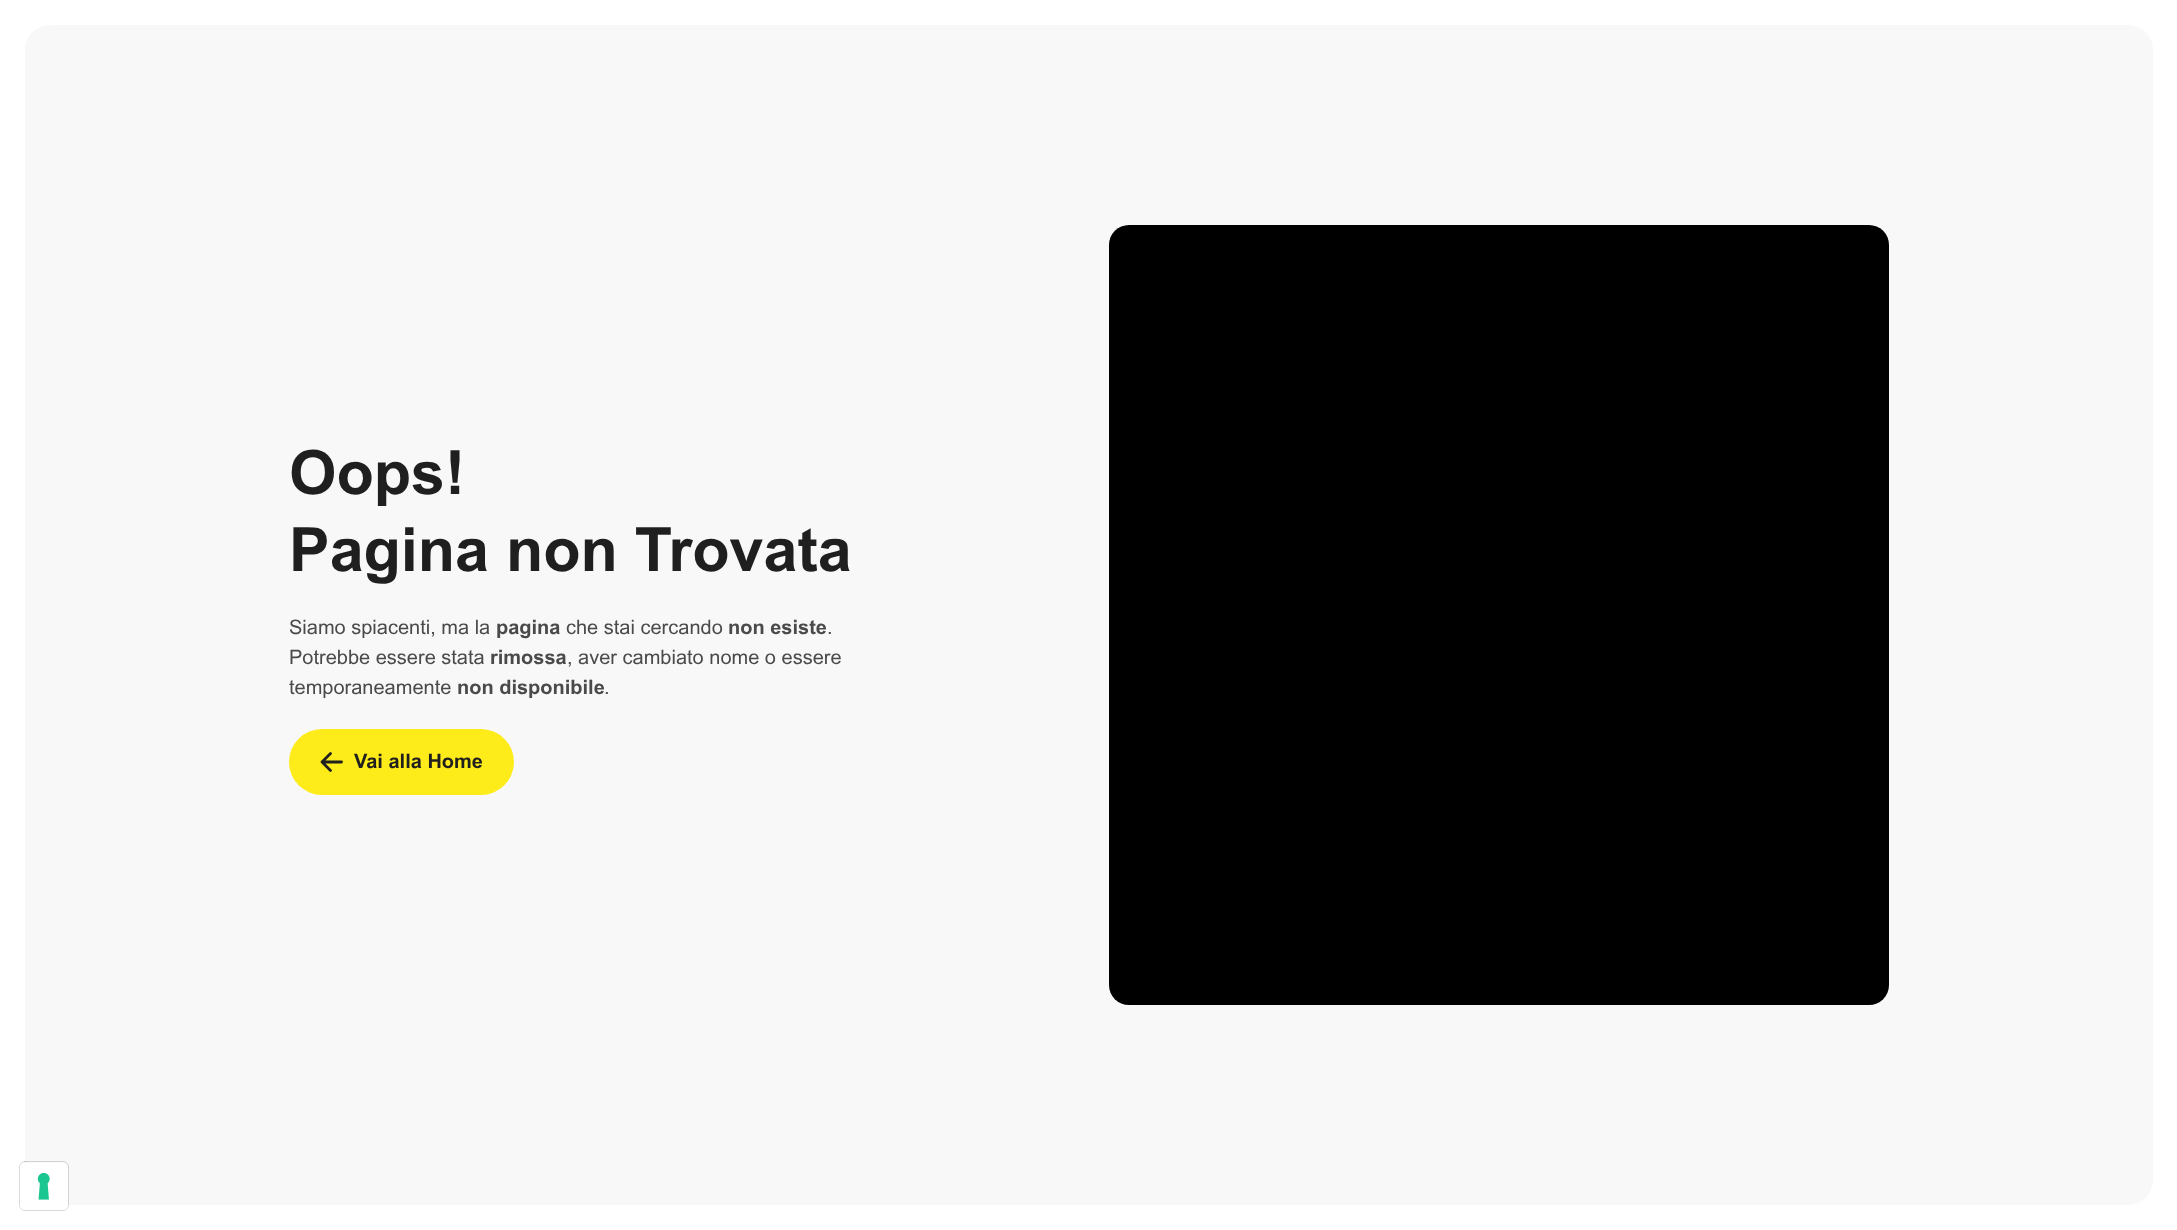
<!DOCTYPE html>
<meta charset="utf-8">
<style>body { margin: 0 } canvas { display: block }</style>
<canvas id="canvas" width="2177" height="1230"></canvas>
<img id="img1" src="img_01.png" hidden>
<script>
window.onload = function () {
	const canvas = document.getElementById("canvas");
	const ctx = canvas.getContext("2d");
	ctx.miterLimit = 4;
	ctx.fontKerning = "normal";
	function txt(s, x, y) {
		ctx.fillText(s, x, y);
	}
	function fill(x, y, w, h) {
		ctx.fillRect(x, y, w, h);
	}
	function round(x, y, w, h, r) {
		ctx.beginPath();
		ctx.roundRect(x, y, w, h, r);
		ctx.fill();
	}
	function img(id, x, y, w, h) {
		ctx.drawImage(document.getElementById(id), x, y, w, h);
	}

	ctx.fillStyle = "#FFFFFF";
	fill(0, 0, 2177, 1230);
	ctx.fillStyle = "#F8F8F8";
	round(25, 25, 2128, 1180, 25);
	ctx.fillStyle = "#FEEB1A";
	round(289, 729, 225, 66, 33);
	ctx.beginPath();
	ctx.moveTo(322, 762);
	ctx.lineTo(341.5, 762);
	ctx.moveTo(322, 762);
	ctx.lineTo(330.5, 770.5);
	ctx.moveTo(322, 762);
	ctx.lineTo(330.5, 753.5);
	ctx.strokeStyle = "#1F1F1F";
	ctx.lineWidth = 2.8;
	ctx.lineCap = "round";
	ctx.lineJoin = "round";
	ctx.stroke();
	ctx.fillStyle = "#000000";
	round(1109, 225, 780, 780, 20);
	ctx.beginPath();
	ctx.roundRect(19.5, 1161.5, 49, 49, 5.5);
	ctx.strokeStyle = "rgba(0, 0, 0, 0.15)";
	ctx.lineWidth = 1;
	ctx.lineJoin = "miter";
	ctx.stroke();
	ctx.fillStyle = "#FFFFFF";
	round(20, 1163, 48, 47, 5);
	img("img1", 37, 1172, 13, 28);
	ctx.font = "bold 61px Arial";
	ctx.fillStyle = "#1F1F1F";
	txt("Oops!", 289, 494);
	txt("Pagina non Trovata", 289, 571);
	ctx.font = "20px Arial";
	ctx.fillStyle = "#4A4A4A";
	txt("Siamo spiacenti, ma la", 289, 634);
	ctx.font = "bold 20px Arial";
	txt("pagina", 496, 634);
	ctx.font = "20px Arial";
	txt("che stai cercando", 566, 634);
	ctx.font = "bold 20px Arial";
	txt("non esiste", 728, 634);
	ctx.font = "20px Arial";
	txt(".", 827, 634);
	txt("Potrebbe essere stata", 289, 664);
	ctx.font = "bold 20px Arial";
	txt("rimossa", 490, 664);
	ctx.font = "20px Arial";
	txt(", aver cambiato nome o essere", 567, 664);
	txt("temporaneamente", 289, 694);
	ctx.font = "bold 20px Arial";
	txt("non disponibile", 457, 694);
	ctx.font = "20px Arial";
	txt(".", 604, 694);
	ctx.font = "bold 20px Arial";
	ctx.fillStyle = "#1F1F1F";
	txt("Vai alla Home", 354, 768);
};
</script>
